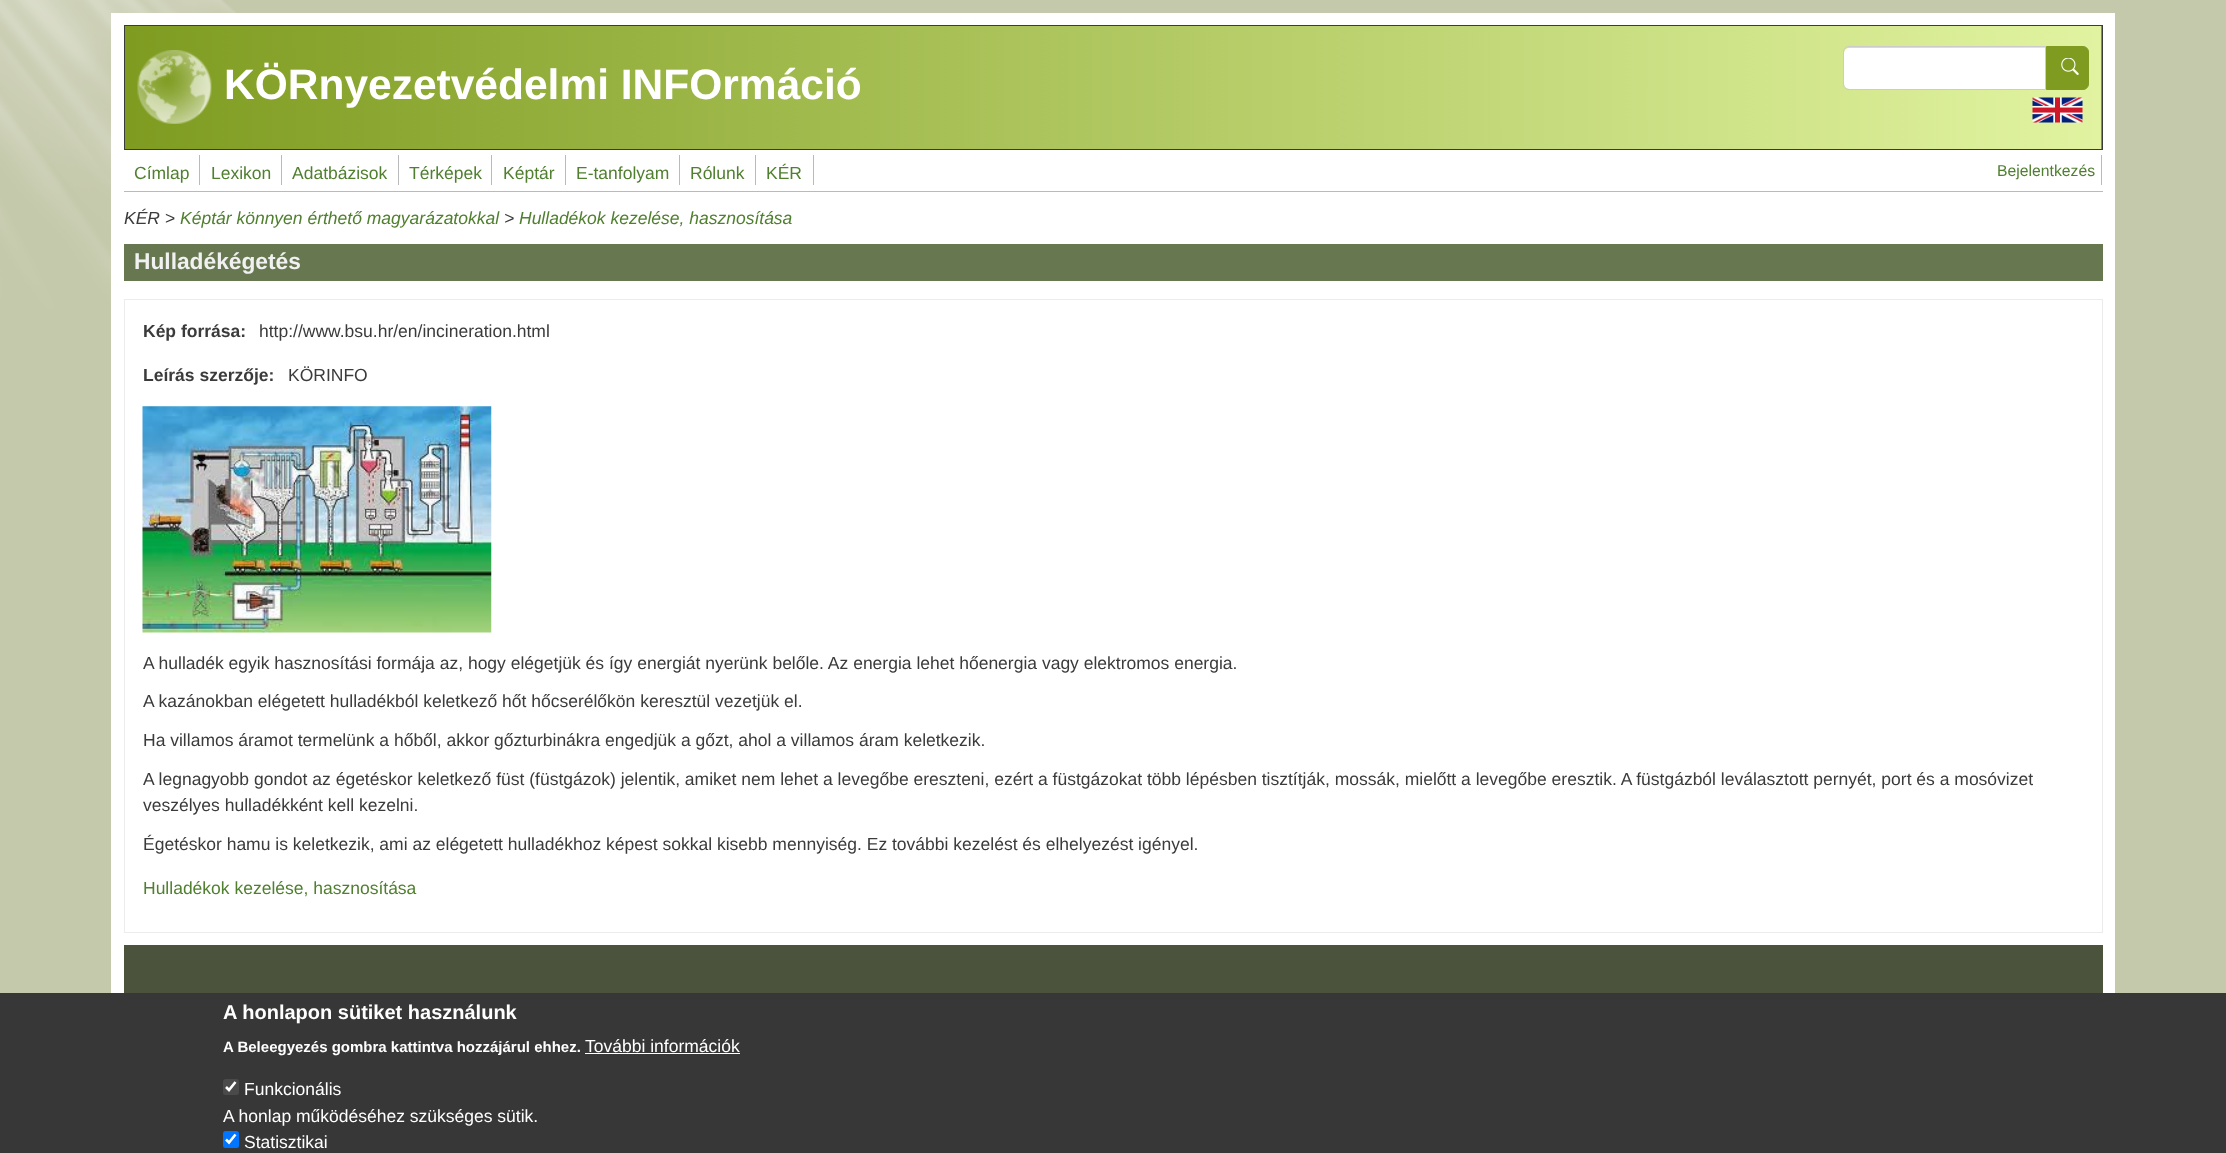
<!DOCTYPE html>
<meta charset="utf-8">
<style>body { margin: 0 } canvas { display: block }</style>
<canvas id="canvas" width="2226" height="1153"></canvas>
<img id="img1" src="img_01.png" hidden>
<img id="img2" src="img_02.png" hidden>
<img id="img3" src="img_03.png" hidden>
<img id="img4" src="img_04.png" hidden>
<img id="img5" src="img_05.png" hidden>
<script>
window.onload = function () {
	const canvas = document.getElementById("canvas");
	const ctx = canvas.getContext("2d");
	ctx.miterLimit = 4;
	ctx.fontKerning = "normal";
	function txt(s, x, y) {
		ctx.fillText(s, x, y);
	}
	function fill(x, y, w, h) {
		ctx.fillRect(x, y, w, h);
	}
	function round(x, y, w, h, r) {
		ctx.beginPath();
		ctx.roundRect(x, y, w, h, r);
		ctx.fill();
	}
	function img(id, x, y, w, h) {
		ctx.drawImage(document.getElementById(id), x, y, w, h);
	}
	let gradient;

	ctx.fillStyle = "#C5C9AB";
	fill(0, 0, 2226, 1153);
	img("img1", 0, 0, 237, 309);
	ctx.fillStyle = "#FFFFFF";
	fill(111, 13, 2004, 980);
	ctx.fillStyle = "#7F9C21";
	fill(2101, 26, 1, 123);
	gradient = ctx.createLinearGradient(125, 88, 2101, 87);
	gradient.addColorStop(0, "#7F9C21");
	gradient.addColorStop(1, "#E1F3A0");
	ctx.fillStyle = gradient;
	fill(125, 26, 1976, 123);
	ctx.strokeStyle = "#3B3B3B";
	ctx.strokeRect(124.5, 25.5, 1978, 124);
	img("img2", 137, 50, 75, 74);
	ctx.fillStyle = "#FFFFFF";
	ctx.beginPath();
	ctx.roundRect(1844, 48, 201, 41, [5, 0, 0, 5]);
	ctx.fill();
	ctx.beginPath();
	ctx.roundRect(1843.5, 46.5, 202, 43, [5.5, 0, 0, 5.5]);
	ctx.strokeStyle = "#CCCCCC";
	ctx.stroke();
	ctx.fillStyle = "#7F9C21";
	ctx.beginPath();
	ctx.roundRect(2046.5, 46.5, 42, 43, [0, 5.5, 5.5, 0]);
	ctx.fill();
	ctx.strokeStyle = "#7F9C21";
	ctx.stroke();
	img("img3", 2061, 58, 18, 17);
	img("img4", 2032, 97, 51, 26);
	ctx.fillStyle = "#BABABA";
	fill(124, 191, 1979, 1);
	fill(199, 155, 1, 30);
	fill(281, 155, 1, 30);
	fill(398, 155, 1, 30);
	fill(491, 155, 1, 30);
	fill(565, 155, 1, 30);
	fill(679, 155, 1, 30);
	fill(755, 155, 1, 30);
	fill(813, 155, 1, 30);
	fill(2101, 155, 1, 30);
	ctx.fillStyle = "#677750";
	fill(124, 244, 1979, 37);
	ctx.strokeStyle = "#ECECEC";
	ctx.strokeRect(124.5, 299.5, 1978, 633);
	img("img5", 142, 406, 350, 227);
	ctx.fillStyle = "#4B533C";
	fill(124, 945, 1979, 48);
	ctx.fillStyle = "#373737";
	fill(0, 993, 2226, 160);
	ctx.fillStyle = "#FFFFFF";
	fill(585, 1053, 155, 1);
	ctx.fillStyle = "#4A4A4A";
	round(223, 1079, 16, 16, 2.5);
	ctx.beginPath();
	ctx.moveTo(226, 1087);
	ctx.lineTo(229, 1090);
	ctx.lineTo(235.5, 1082);
	ctx.strokeStyle = "#FFFFFF";
	ctx.lineWidth = 2.6;
	ctx.stroke();
	ctx.fillStyle = "#0075FF";
	round(223, 1131, 16, 17, 2.5);
	ctx.beginPath();
	ctx.moveTo(226, 1139.5);
	ctx.lineTo(229, 1142.5);
	ctx.lineTo(235.5, 1134.5);
	ctx.stroke();
	ctx.font = "bold 42.5px Liberation Sans";
	ctx.fillStyle = "#FFFFFF";
	txt("KÖRnyezetvédelmi INFOrmáció", 224, 99);
	ctx.font = "17.5px Liberation Sans";
	ctx.fillStyle = "#507F2F";
	txt("Címlap", 134, 179);
	txt("Lexikon", 211, 179);
	txt("Adatbázisok", 292, 179);
	txt("Térképek", 409, 179);
	txt("Képtár", 503, 179);
	txt("E-tanfolyam", 576, 179);
	txt("Rólunk", 690, 179);
	txt("KÉR", 766, 179);
	ctx.font = "15.75px Liberation Sans";
	txt("Bejelentkezés", 1997, 176);
	ctx.font = "italic 17.5px Liberation Sans";
	ctx.fillStyle = "#3B3B3B";
	txt("KÉR >", 124, 224);
	ctx.fillStyle = "#507F2F";
	txt("Képtár könnyen érthető magyarázatokkal", 180, 224);
	ctx.fillStyle = "#3B3B3B";
	txt(">", 504, 224);
	ctx.fillStyle = "#507F2F";
	txt("Hulladékok kezelése, hasznosítása", 519, 224);
	ctx.font = "bold 22.75px Liberation Sans";
	ctx.fillStyle = "#F1F1F1";
	txt("Hulladékégetés", 134, 269);
	ctx.font = "bold 17.5px Liberation Sans";
	ctx.fillStyle = "#3B3B3B";
	txt("Kép forrása:", 143, 337);
	ctx.font = "17.5px Liberation Sans";
	txt("http://www.bsu.hr/en/incineration.html", 259, 337);
	ctx.font = "bold 17.5px Liberation Sans";
	txt("Leírás szerzője:", 143, 381);
	ctx.font = "17.5px Liberation Sans";
	txt("KÖRINFO", 288, 381);
	txt("A hulladék egyik hasznosítási formája az, hogy elégetjük és így energiát nyerünk belőle. Az energia lehet hőenergia vagy elektromos energia.", 143, 669);
	txt("A kazánokban elégetett hulladékból keletkező hőt hőcserélőkön keresztül vezetjük el.", 143, 707);
	txt("Ha villamos áramot termelünk a hőből, akkor gőzturbinákra engedjük a gőzt, ahol a villamos áram keletkezik.", 143, 746);
	txt("A legnagyobb gondot az égetéskor keletkező füst (füstgázok) jelentik, amiket nem lehet a levegőbe ereszteni, ezért a füstgázokat több lépésben tisztítják, mossák, mielőtt a levegőbe eresztik. A füstgázból leválasztott pernyét, port és a mosóvizet", 143, 785);
	txt("veszélyes hulladékként kell kezelni.", 143, 811);
	txt("Égetéskor hamu is keletkezik, ami az elégetett hulladékhoz képest sokkal kisebb mennyiség. Ez további kezelést és elhelyezést igényel.", 143, 850);
	ctx.fillStyle = "#507F2F";
	txt("Hulladékok kezelése, hasznosítása", 143, 894);
	ctx.font = "bold 20px Liberation Sans";
	ctx.fillStyle = "#FFFFFF";
	txt("A honlapon sütiket használunk", 223, 1019);
	ctx.font = "bold 15px Liberation Sans";
	txt("A Beleegyezés gombra kattintva hozzájárul ehhez.", 223, 1052);
	ctx.font = "17.5px Liberation Sans";
	txt("További információk", 585, 1052);
	txt("Funkcionális", 244, 1095);
	txt("A honlap működéséhez szükséges sütik.", 223, 1122);
	txt("Statisztikai", 244, 1148);
};
</script>
